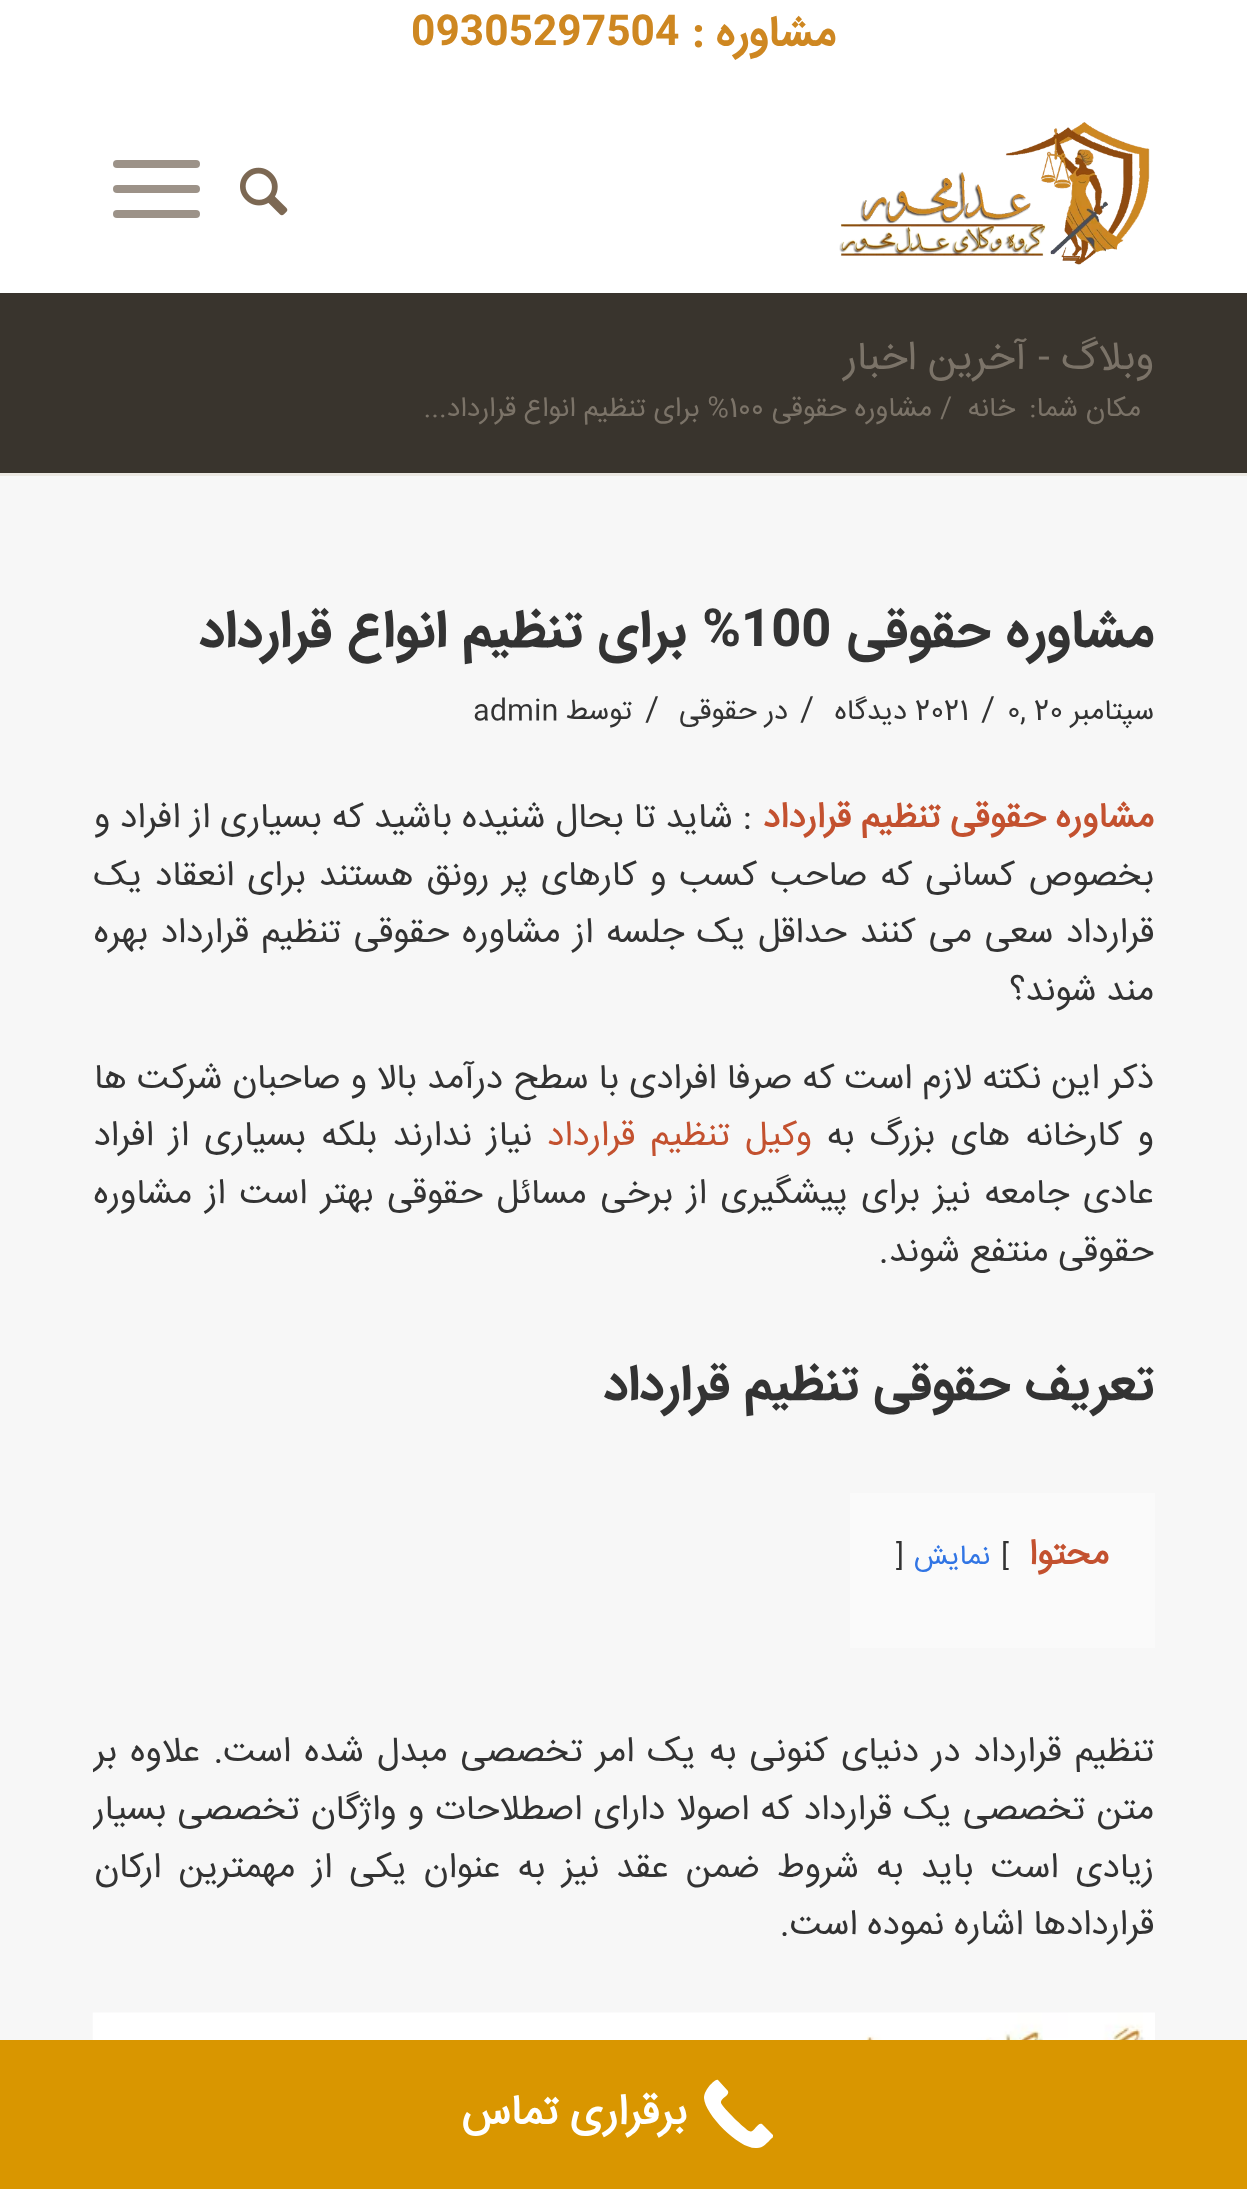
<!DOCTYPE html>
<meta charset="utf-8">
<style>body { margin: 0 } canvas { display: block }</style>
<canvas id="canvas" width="1247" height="2189"></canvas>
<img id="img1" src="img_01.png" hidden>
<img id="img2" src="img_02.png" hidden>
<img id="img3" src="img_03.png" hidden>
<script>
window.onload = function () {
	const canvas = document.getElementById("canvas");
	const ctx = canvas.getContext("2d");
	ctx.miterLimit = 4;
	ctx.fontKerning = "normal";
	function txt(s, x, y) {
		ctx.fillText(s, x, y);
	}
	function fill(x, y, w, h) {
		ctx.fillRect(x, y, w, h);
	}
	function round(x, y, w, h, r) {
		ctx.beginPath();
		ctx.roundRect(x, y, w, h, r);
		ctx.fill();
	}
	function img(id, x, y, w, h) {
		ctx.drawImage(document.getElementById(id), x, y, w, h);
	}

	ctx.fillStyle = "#F7F7F7";
	fill(0, 0, 1247, 2189);
	ctx.fillStyle = "#FFFFFF";
	fill(0, 0, 1247, 293);
	img("img1", 839, 122, 311, 143);
	img("img2", 240, 167, 48, 49);
	ctx.fillStyle = "#9C9288";
	round(113, 185, 87, 8, 4);
	round(113, 160, 87, 8, 4);
	round(113, 210, 87, 8, 4);
	ctx.fillStyle = "#39342D";
	fill(0, 293, 1247, 180);
	ctx.fillStyle = "#EBE8E2";
	fill(0, 473, 1247, 3);
	ctx.fillStyle = "#FAFAFA";
	fill(850, 1493, 305, 155);
	img("img3", 92, 2012, 1063, 28);
	ctx.fillStyle = "#D99600";
	fill(0, 2040, 1247, 149);
	ctx.fillStyle = "#FFFFFF";
	ctx.beginPath();
	ctx.moveTo(772, 2138);
	ctx.bezierCurveTo(767, 2143, 763, 2148, 757, 2148);
	ctx.bezierCurveTo(740, 2150, 705, 2115, 704, 2098);
	ctx.bezierCurveTo(704, 2093, 707, 2089, 710, 2085);
	ctx.bezierCurveTo(712, 2084, 715, 2079, 718, 2080);
	ctx.lineTo(728, 2091);
	ctx.bezierCurveTo(730, 2096, 720, 2098, 721, 2103);
	ctx.bezierCurveTo(723, 2108, 745, 2129, 749, 2131);
	ctx.bezierCurveTo(754, 2134, 757, 2122, 762, 2124);
	ctx.lineTo(773, 2135);
	ctx.bezierCurveTo(773, 2136, 773, 2138, 772, 2138);
	ctx.closePath();
	ctx.fill();
	ctx.direction = "rtl";
	ctx.font = "bold 42.5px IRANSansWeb";
	ctx.fillStyle = "#CE8721";
	txt("مشاوره :", 836, 45);
	ctx.direction = "ltr";
	txt("09305297504", 411, 45);
	ctx.direction = "rtl";
	ctx.font = "40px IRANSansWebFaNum";
	ctx.fillStyle = "#7B7368";
	txt("وبلاگ - آخرین اخبار", 1154, 369);
	ctx.font = "27.5px IRANSansWebFaNum";
	txt("مکان شما:", 1141, 416);
	txt("خانه", 1015, 416);
	ctx.direction = "ltr";
	txt("/", 940, 416);
	ctx.direction = "rtl";
	txt("مشاوره حقوقی", 932, 416);
	ctx.direction = "ltr";
	txt("100", 729, 416);
	ctx.direction = "rtl";
	txt("% برای تنظیم انواع", 729, 416);
	txt("قرارداد...", 516, 416);
	ctx.font = "bold 52.5px IRANSansWeb";
	ctx.fillStyle = "#333333";
	txt("مشاوره حقوقی", 1154, 646);
	ctx.direction = "ltr";
	txt("100", 741, 646);
	ctx.direction = "rtl";
	txt("% برای تنظیم انواع", 741, 646);
	txt("قرارداد", 332, 646);
	ctx.font = "28.5px IRANSansWebFaNum";
	txt("سپتامبر", 1154, 719);
	ctx.direction = "ltr";
	txt(", 20", 1020, 719);
	txt("0", 1007, 719);
	ctx.font = "32px IRANSansWebFaNum";
	txt("/", 981, 719);
	ctx.font = "28.5px IRANSansWebFaNum";
	txt("2021", 915, 719);
	ctx.direction = "rtl";
	txt("دیدگاه", 907, 719);
	ctx.direction = "ltr";
	ctx.font = "32px IRANSansWebFaNum";
	txt("/", 800, 719);
	ctx.direction = "rtl";
	ctx.font = "28.5px IRANSansWebFaNum";
	txt("در", 788, 719);
	txt("حقوقی", 757, 719);
	ctx.direction = "ltr";
	ctx.font = "32px IRANSansWebFaNum";
	txt("/", 645, 719);
	ctx.direction = "rtl";
	ctx.font = "28.5px IRANSansWebFaNum";
	txt("توسط", 632, 719);
	ctx.direction = "ltr";
	txt("admin", 473, 719);
	ctx.direction = "rtl";
	ctx.font = "bold 35px IRANSansWebFaNum";
	ctx.fillStyle = "#C3512F";
	txt("مشاوره حقوقی تنظیم قرارداد", 1154, 827);
	ctx.wordSpacing = "0.1px";
	ctx.font = "35px IRANSansWebFaNum";
	ctx.fillStyle = "#333333";
	txt(": شاید تا بحال شنیده باشید که بسیاری از افراد و", 752, 827);
	ctx.wordSpacing = "3.1px";
	txt("بخصوص کسانی که صاحب کسب و کارهای پر رونق هستند برای انعقاد یک", 1154, 885);
	ctx.wordSpacing = "2.9px";
	txt("قرارداد سعی می کنند حداقل یک جلسه از مشاوره حقوقی تنظیم قرارداد بهره", 1154, 942);
	ctx.wordSpacing = "0px";
	txt("مند شوند؟", 1154, 1000);
	ctx.wordSpacing = "0.25px";
	txt("ذکر این نکته لازم است که صرفا افرادی با سطح درآمد بالا و صاحبان شرکت ها", 1154, 1088);
	ctx.wordSpacing = "5.5px";
	txt("و کارخانه های بزرگ به", 1154, 1145);
	ctx.fillStyle = "#C3512F";
	txt("وکیل تنظیم قرارداد", 812, 1145);
	ctx.fillStyle = "#333333";
	txt("نیاز ندارند بلکه بسیاری از افراد", 532, 1145);
	ctx.wordSpacing = "4px";
	txt("عادی جامعه نیز برای پیشگیری از برخی مسائل حقوقی بهتر است از مشاوره", 1154, 1203);
	ctx.wordSpacing = "0px";
	txt("حقوقی منتفع شوند.", 1154, 1261);
	ctx.font = "bold 50px IRANSansWeb";
	txt("تعریف حقوقی تنظیم قرارداد", 1154, 1399);
	ctx.font = "bold 35px IRANSansWebFaNum";
	ctx.fillStyle = "#C3512F";
	txt("محتوا", 1109, 1564);
	ctx.direction = "ltr";
	ctx.font = "28px IRANSansWebFaNum";
	ctx.fillStyle = "#333333";
	txt("[", 1001, 1564);
	ctx.direction = "rtl";
	ctx.fillStyle = "#3175E4";
	txt("نمایش", 990, 1564);
	ctx.direction = "ltr";
	ctx.fillStyle = "#333333";
	txt("]", 896, 1564);
	ctx.save();
	ctx.beginPath();
	ctx.rect(93, 600, 1062, 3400);
	ctx.clip();
	ctx.wordSpacing = "3.25px";
	ctx.direction = "rtl";
	ctx.font = "35px IRANSansWebFaNum";
	txt("تنظیم قرارداد در دنیای کنونی به یک امر تخصصی مبدل شده است. علاوه بر", 1154, 1761);
	ctx.wordSpacing = "1.4px";
	txt("متن تخصصی یک قرارداد که اصولا دارای اصطلاحات و واژگان تخصصی بسیار", 1154, 1819);
	ctx.restore();
	ctx.wordSpacing = "7.25px";
	ctx.direction = "rtl";
	ctx.font = "35px IRANSansWebFaNum";
	txt("زیادی است باید به شروط ضمن عقد نیز به عنوان یکی از مهمترین ارکان", 1154, 1877);
	ctx.wordSpacing = "0px";
	txt("قراردادها اشاره نموده است.", 1154, 1934);
	ctx.font = "bold 42px IRANSansWebFaNum";
	ctx.fillStyle = "#FFFFFF";
	txt("برقراری تماس", 687, 2124);
};
</script>
